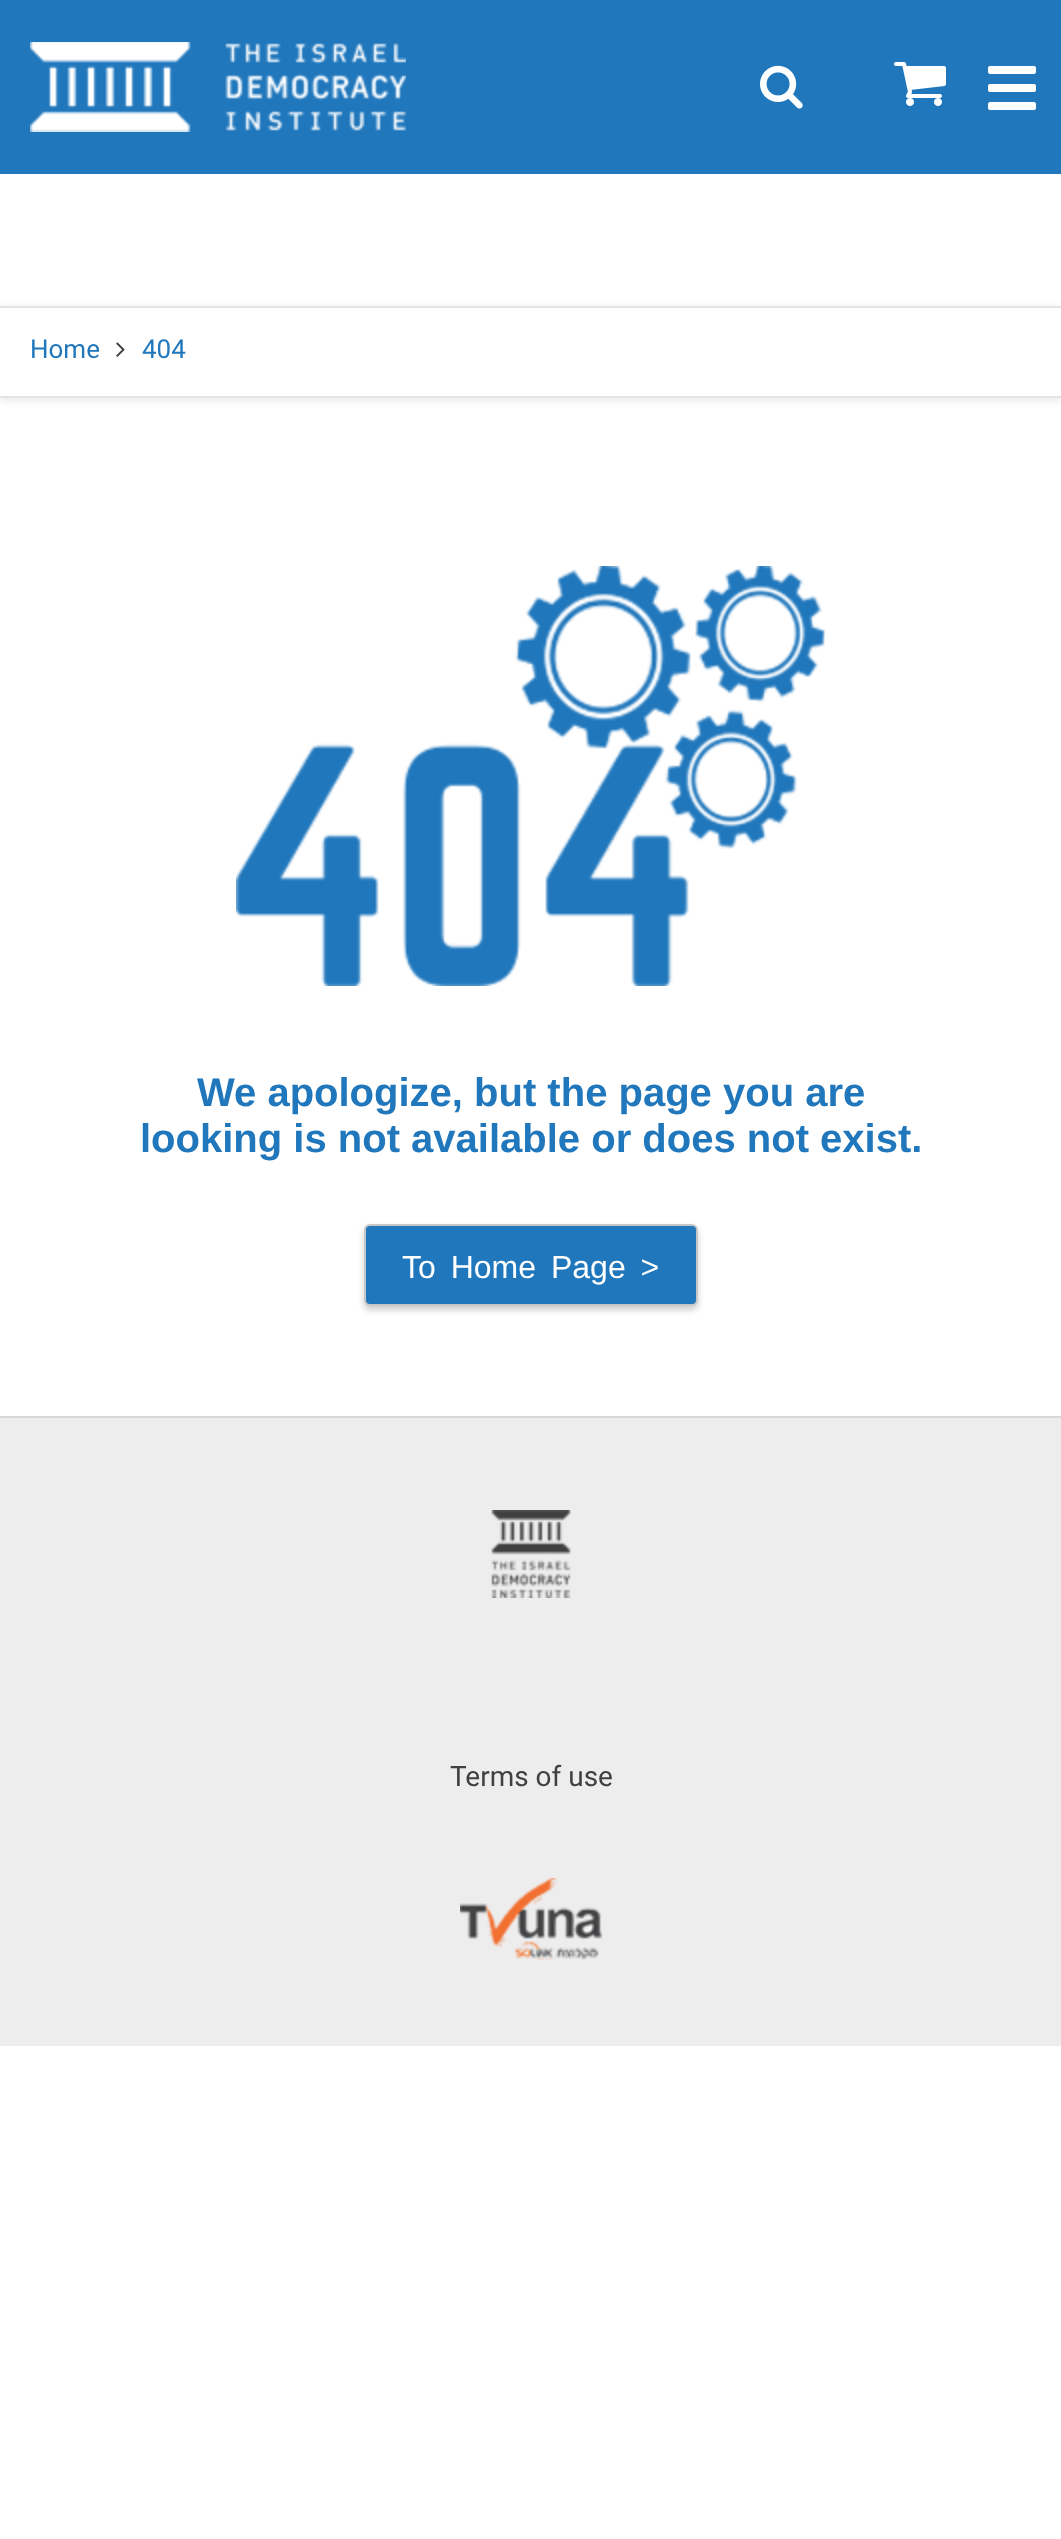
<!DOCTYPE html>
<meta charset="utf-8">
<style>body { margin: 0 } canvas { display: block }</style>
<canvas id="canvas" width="1061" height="2539"></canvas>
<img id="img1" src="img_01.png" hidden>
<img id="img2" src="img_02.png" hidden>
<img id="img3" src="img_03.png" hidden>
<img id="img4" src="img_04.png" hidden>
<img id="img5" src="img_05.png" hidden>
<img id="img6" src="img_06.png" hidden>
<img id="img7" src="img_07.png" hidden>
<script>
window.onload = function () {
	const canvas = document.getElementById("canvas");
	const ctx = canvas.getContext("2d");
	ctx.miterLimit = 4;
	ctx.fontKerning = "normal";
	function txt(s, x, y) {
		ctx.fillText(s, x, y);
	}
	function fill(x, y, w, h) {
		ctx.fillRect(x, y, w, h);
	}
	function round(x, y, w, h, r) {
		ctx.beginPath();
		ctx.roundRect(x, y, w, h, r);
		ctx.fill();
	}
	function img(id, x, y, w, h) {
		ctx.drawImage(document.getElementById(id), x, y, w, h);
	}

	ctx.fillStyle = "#FFFFFF";
	fill(0, 0, 1061, 2539);
	ctx.fillStyle = "#2077BC";
	fill(0, 0, 1061, 174);
	img("img1", 30, 42, 376, 90);
	img("img2", 760, 65, 43, 44);
	img("img3", 894, 62, 52, 44);
	ctx.fillStyle = "#FFFFFF";
	round(988, 66, 48, 8, 2);
	round(988, 84, 48, 8, 2);
	round(988, 102, 48, 8, 2);
	ctx.save();
	ctx.beginPath();
	ctx.moveTo(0, 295);
	ctx.lineTo(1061, 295);
	ctx.lineTo(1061, 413);
	ctx.lineTo(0, 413);
	ctx.closePath();
	ctx.moveTo(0, 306);
	ctx.lineTo(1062, 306);
	ctx.lineTo(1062, 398);
	ctx.lineTo(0, 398);
	ctx.closePath();
	ctx.clip("evenodd");
	ctx.fillStyle = "rgba(0, 0, 0, 0.1)";
	ctx.filter = "blur(4px)";
	ctx.beginPath();
	ctx.rect(0, 308, 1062, 92);
	ctx.fill();
	ctx.filter = "none";
	ctx.restore();
	ctx.fillStyle = "#E4E4E5";
	fill(0, 306, 1061, 2);
	fill(0, 396, 1061, 2);
	img("img4", 116, 342, 9, 15);
	img("img5", 236, 566, 590, 420);
	ctx.fillStyle = "rgba(2, 3, 3, 0.2)";
	ctx.filter = "blur(3px)";
	ctx.beginPath();
	ctx.roundRect(364, 1228, 334, 82, 6);
	ctx.fill();
	ctx.filter = "none";
	ctx.fillStyle = "#2077BC";
	ctx.beginPath();
	ctx.roundRect(365, 1225, 332, 80, 5);
	ctx.fill();
	ctx.strokeStyle = "#C7C7C7";
	ctx.lineWidth = 2;
	ctx.stroke();
	ctx.fillStyle = "#D9D9D9";
	fill(0, 1416, 1061, 2);
	ctx.fillStyle = "#EDEDED";
	fill(0, 1418, 1061, 628);
	img("img6", 491, 1510, 80, 88);
	img("img7", 460, 1878, 142, 82);
	ctx.font = "26px Roboto";
	ctx.fillStyle = "#2077BC";
	txt("Home", 30, 358);
	txt("404", 142, 358);
	ctx.font = "bold 40px Liberation Sans";
	txt("We apologize, but the page you are", 197, 1106);
	txt("looking is not available or does not exist.", 140, 1152);
	ctx.wordSpacing = "6px";
	ctx.font = "32px Liberation Sans";
	ctx.fillStyle = "#FFFFFF";
	txt("To Home Page >", 402, 1278);
	ctx.wordSpacing = "0px";
	ctx.font = "28px Roboto";
	ctx.fillStyle = "#404041";
	txt("Terms of use", 450, 1786);
};
</script>
